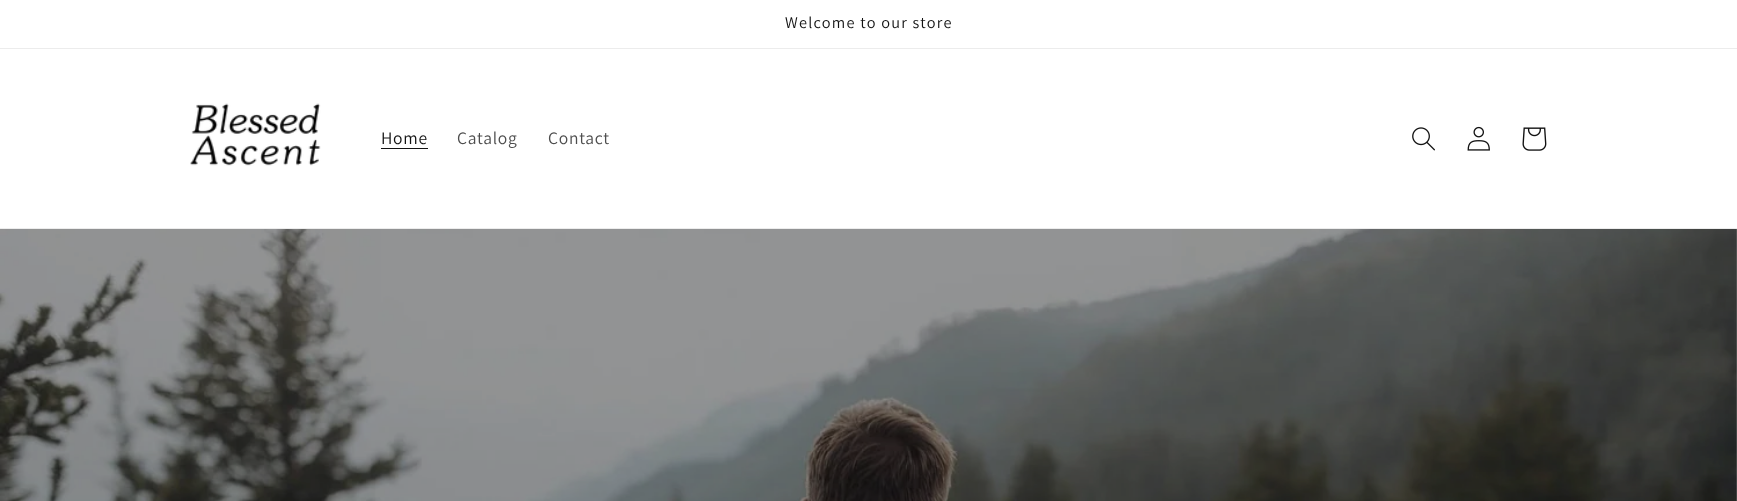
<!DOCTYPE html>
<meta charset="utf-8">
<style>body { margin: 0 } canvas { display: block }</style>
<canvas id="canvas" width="1737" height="501"></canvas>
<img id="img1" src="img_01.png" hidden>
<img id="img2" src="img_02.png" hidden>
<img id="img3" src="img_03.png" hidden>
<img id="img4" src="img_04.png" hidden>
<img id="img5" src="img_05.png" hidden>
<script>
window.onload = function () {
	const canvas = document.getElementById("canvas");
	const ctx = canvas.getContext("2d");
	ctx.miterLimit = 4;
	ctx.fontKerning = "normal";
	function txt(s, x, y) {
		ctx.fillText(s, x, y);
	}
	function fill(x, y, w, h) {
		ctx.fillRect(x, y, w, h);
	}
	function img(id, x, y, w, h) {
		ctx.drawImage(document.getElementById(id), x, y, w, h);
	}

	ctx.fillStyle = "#FFFFFF";
	fill(0, 0, 1737, 501);
	ctx.fillStyle = "#ECECEC";
	fill(0, 48, 1737, 1);
	fill(0, 228, 1737, 1);
	img("img1", 190, 103, 131, 63);
	ctx.fillStyle = "#121212";
	fill(381, 148, 47, 1);
	img("img2", 1412, 127, 23, 24);
	img("img3", 1467, 126, 23, 25);
	img("img4", 1522, 127, 25, 24);
	ctx.fillStyle = "#8B8B8B";
	fill(1734, 229, 3, 272);
	img("img5", 0, 229, 1737, 272);
	ctx.letterSpacing = "1.25px";
	ctx.font = "16.25px Assistant";
	ctx.fillStyle = "#121212";
	txt("Welcome to our store", 785, 28);
	ctx.letterSpacing = "0.75px";
	ctx.font = "17.5px Assistant";
	txt("Home", 381, 144);
	ctx.fillStyle = "#4D4D4D";
	txt("Catalog", 457, 144);
	txt("Contact", 548, 144);
};
</script>
